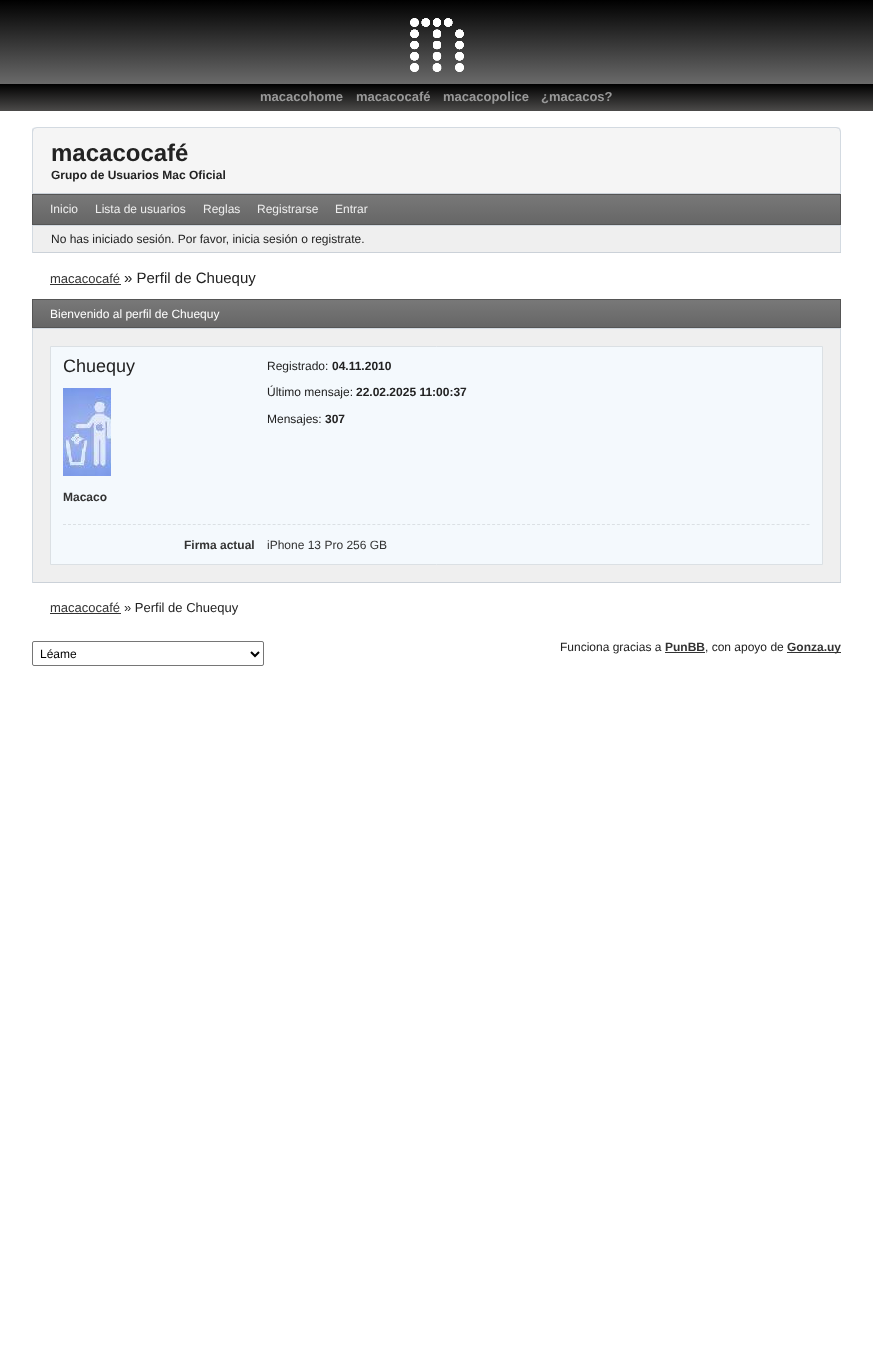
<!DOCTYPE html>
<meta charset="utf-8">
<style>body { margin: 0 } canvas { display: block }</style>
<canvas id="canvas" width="873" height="1358"></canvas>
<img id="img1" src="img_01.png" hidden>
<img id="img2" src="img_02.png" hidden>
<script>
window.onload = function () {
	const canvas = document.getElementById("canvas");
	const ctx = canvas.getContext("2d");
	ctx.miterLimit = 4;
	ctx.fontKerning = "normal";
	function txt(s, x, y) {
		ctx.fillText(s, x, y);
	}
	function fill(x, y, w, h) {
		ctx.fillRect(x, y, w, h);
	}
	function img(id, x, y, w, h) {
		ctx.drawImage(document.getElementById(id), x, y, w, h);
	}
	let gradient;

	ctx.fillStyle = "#FFFFFF";
	fill(0, 0, 873, 1358);
	gradient = ctx.createLinearGradient(437, 0, 437, 84);
	gradient.addColorStop(0, "#000000");
	gradient.addColorStop(1, "#6A6A6A");
	ctx.fillStyle = gradient;
	fill(0, 0, 873, 84);
	img("img1", 410, 18, 54, 54);
	gradient = ctx.createLinearGradient(437, 84, 437, 111);
	gradient.addColorStop(0, "#000000");
	gradient.addColorStop(1, "#4C4B4A");
	ctx.fillStyle = gradient;
	fill(0, 84, 873, 27);
	ctx.fillStyle = "#F5F5F5";
	ctx.beginPath();
	ctx.roundRect(32, 127, 809, 67, [5, 5, 0, 0]);
	ctx.fill();
	ctx.fillStyle = "#D3DAE1";
	ctx.beginPath();
	ctx.moveTo(37, 127);
	ctx.bezierCurveTo(36, 127, 34, 128, 33, 128);
	ctx.lineTo(34, 129);
	ctx.lineTo(37, 128);
	ctx.lineTo(836, 128);
	ctx.lineTo(839, 129);
	ctx.lineTo(840, 128);
	ctx.bezierCurveTo(839, 128, 838, 127, 836, 127);
	ctx.closePath();
	ctx.fill();
	ctx.beginPath();
	ctx.moveTo(841, 194);
	ctx.lineTo(841, 132);
	ctx.bezierCurveTo(841, 130, 840, 129, 840, 128);
	ctx.lineTo(839, 129);
	ctx.lineTo(840, 132);
	ctx.lineTo(840, 193);
	ctx.closePath();
	ctx.fill();
	ctx.fillStyle = "#CBD1D8";
	ctx.beginPath();
	ctx.moveTo(841, 194);
	ctx.lineTo(840, 193);
	ctx.lineTo(33, 193);
	ctx.lineTo(32, 194);
	ctx.closePath();
	ctx.fill();
	ctx.fillStyle = "#D3DAE1";
	ctx.beginPath();
	ctx.moveTo(32, 194);
	ctx.lineTo(33, 193);
	ctx.lineTo(33, 132);
	ctx.lineTo(34, 129);
	ctx.lineTo(33, 128);
	ctx.bezierCurveTo(32, 129, 32, 130, 32, 132);
	ctx.closePath();
	ctx.fill();
	gradient = ctx.createLinearGradient(437, 224, 437, 195);
	gradient.addColorStop(0, "#666666");
	gradient.addColorStop(1, "#787878");
	ctx.fillStyle = gradient;
	fill(33, 195, 807, 29);
	ctx.strokeStyle = "#555555";
	ctx.strokeRect(32.5, 194.5, 808, 30);
	ctx.fillStyle = "#EFEFEF";
	fill(33, 226, 807, 26);
	ctx.fillStyle = "#D3DAE1";
	fill(32, 225, 809, 1);
	fill(840, 225, 1, 28);
	ctx.fillStyle = "#CBD1D8";
	fill(32, 252, 809, 1);
	ctx.fillStyle = "#D3DAE1";
	fill(32, 225, 1, 28);
	ctx.fillStyle = "#333333";
	fill(50, 284, 71, 1);
	gradient = ctx.createLinearGradient(437, 327, 437, 300);
	gradient.addColorStop(0, "#666666");
	gradient.addColorStop(1, "#787878");
	ctx.fillStyle = gradient;
	fill(33, 300, 807, 27);
	ctx.strokeRect(32.5, 299.5, 808, 28);
	ctx.fillStyle = "#EFEFEF";
	fill(33, 329, 807, 253);
	ctx.fillStyle = "#D3DAE1";
	fill(32, 328, 809, 1);
	fill(840, 328, 1, 255);
	ctx.fillStyle = "#CBD1D8";
	fill(32, 582, 809, 1);
	ctx.fillStyle = "#D3DAE1";
	fill(32, 328, 1, 255);
	ctx.fillStyle = "#F4F9FD";
	ctx.beginPath();
	ctx.rect(50.5, 346.5, 772, 218);
	ctx.fill();
	ctx.strokeStyle = "#DBE0E4";
	ctx.stroke();
	img("img2", 63, 388, 48, 88);
	ctx.beginPath();
	ctx.moveTo(63, 524.5);
	ctx.lineTo(810, 524.5);
	ctx.setLineDash([3, 1.99]);
	ctx.stroke();
	ctx.fillStyle = "#333333";
	fill(50, 613, 71, 1);
	ctx.beginPath();
	ctx.roundRect(32.5, 641.5, 231, 24, 1.5);
	ctx.strokeStyle = "#767676";
	ctx.setLineDash([]);
	ctx.stroke();
	ctx.beginPath();
	ctx.moveTo(251, 652);
	ctx.lineTo(255, 656);
	ctx.lineTo(259, 652);
	ctx.strokeStyle = "#000000";
	ctx.lineWidth = 2;
	ctx.stroke();
	fill(665, 652, 40, 1);
	fill(787, 652, 54, 1);
	ctx.font = "bold 13px Liberation Sans";
	ctx.fillStyle = "#999999";
	txt("macacohome", 260, 101);
	txt("macacocafé", 356, 101);
	txt("macacopolice", 443, 101);
	txt("¿macacos?", 541, 101);
	ctx.font = "bold 24px Liberation Sans";
	ctx.fillStyle = "#222222";
	txt("macacocafé", 51, 161);
	ctx.font = "bold 12px Liberation Sans";
	txt("Grupo de Usuarios Mac Oficial", 51, 179);
	ctx.font = "12px Liberation Sans";
	ctx.fillStyle = "#EEEEEE";
	txt("Inicio", 50, 213);
	txt("Lista de usuarios", 95, 213);
	txt("Reglas", 203, 213);
	txt("Registrarse", 257, 213);
	txt("Entrar", 335, 213);
	ctx.fillStyle = "#222222";
	txt("No has iniciado sesión. Por favor, inicia sesión o registrate.", 51, 243);
	ctx.font = "13px Liberation Sans";
	ctx.fillStyle = "#333333";
	txt("macacocafé", 50, 283);
	ctx.font = "15px Liberation Sans";
	ctx.fillStyle = "#222222";
	txt("» Perfil de Chuequy", 124, 283);
	ctx.font = "12px Liberation Sans";
	ctx.fillStyle = "#FFFFFF";
	txt("Bienvenido al perfil de Chuequy", 50, 318);
	ctx.font = "18px Liberation Sans";
	ctx.fillStyle = "#222222";
	txt("Chuequy", 63, 372);
	ctx.font = "bold 12px Liberation Sans";
	ctx.fillStyle = "#333333";
	txt("Macaco", 63, 501);
	ctx.font = "12px Liberation Sans";
	ctx.fillStyle = "#222222";
	txt("Registrado:", 267, 370);
	ctx.font = "bold 12px Liberation Sans";
	txt("04.11.2010", 332, 370);
	ctx.font = "12px Liberation Sans";
	txt("Último mensaje:", 267, 396);
	ctx.font = "bold 12px Liberation Sans";
	txt("22.02.2025 11:00:37", 356, 396);
	ctx.font = "12px Liberation Sans";
	txt("Mensajes:", 267, 423);
	ctx.font = "bold 12px Liberation Sans";
	txt("307", 325, 423);
	ctx.fillStyle = "#333333";
	txt("Firma actual", 184, 549);
	ctx.font = "12px Liberation Sans";
	txt("iPhone 13 Pro 256 GB", 267, 549);
	ctx.font = "13px Liberation Sans";
	txt("macacocafé", 50, 612);
	ctx.fillStyle = "#222222";
	txt("» Perfil de Chuequy", 124, 612);
	ctx.font = "12px Liberation Sans";
	ctx.fillStyle = "#000000";
	txt("Léame", 40, 658);
	ctx.fillStyle = "#222222";
	txt("Funciona gracias a", 560, 651);
	ctx.font = "bold 12px Liberation Sans";
	ctx.fillStyle = "#333333";
	txt("PunBB", 665, 651);
	ctx.font = "12px Liberation Sans";
	ctx.fillStyle = "#222222";
	txt(", con apoyo de", 705, 651);
	ctx.font = "bold 12px Liberation Sans";
	ctx.fillStyle = "#333333";
	txt("Gonza.uy", 787, 651);
};
</script>
